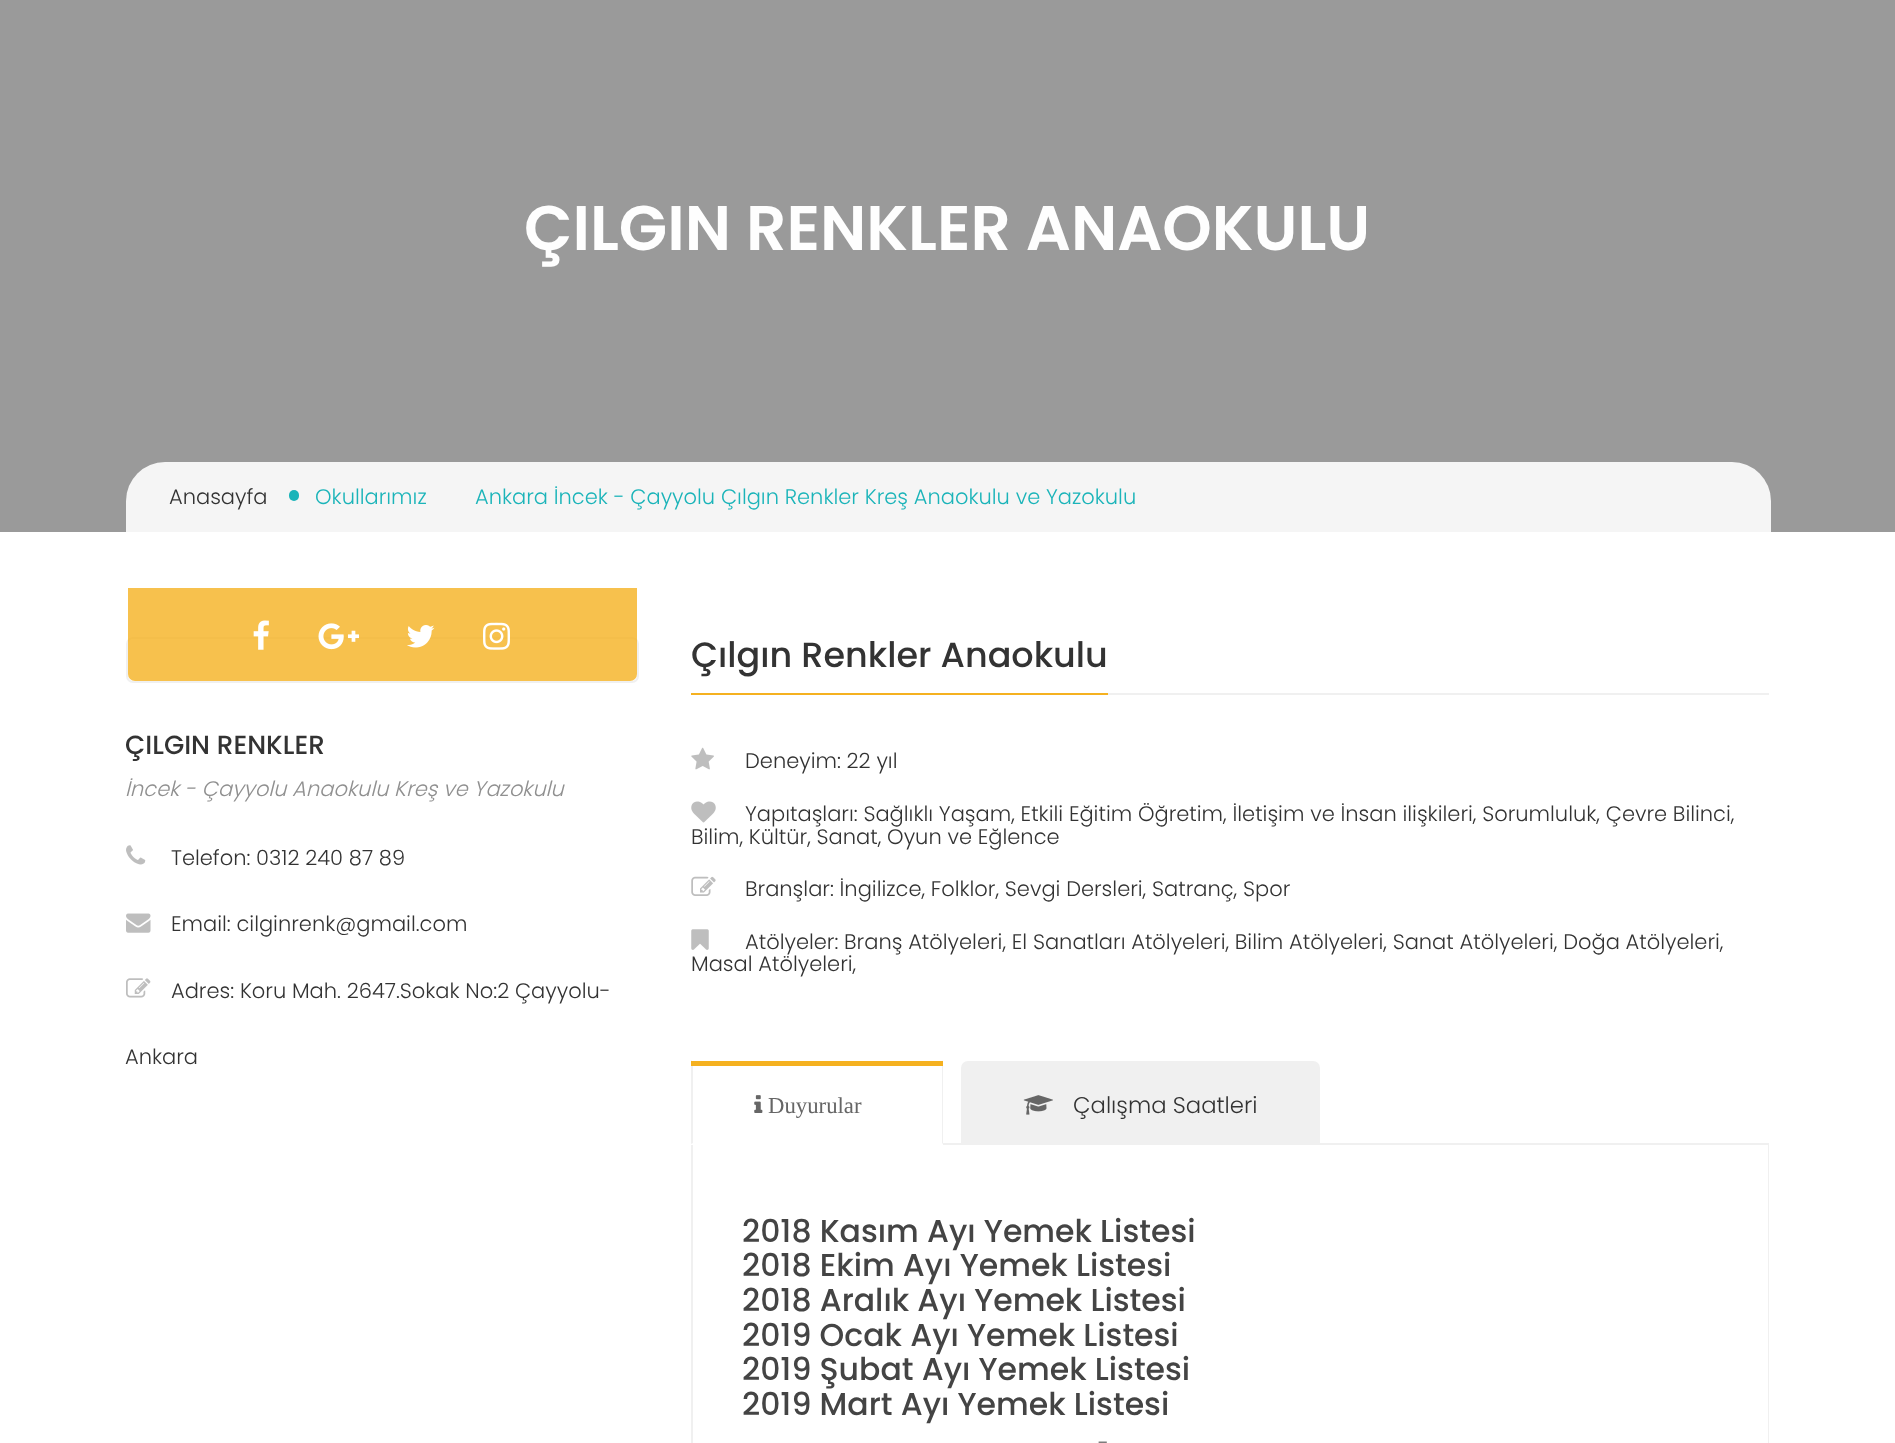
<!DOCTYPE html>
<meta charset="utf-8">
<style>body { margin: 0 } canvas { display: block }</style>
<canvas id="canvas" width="1895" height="1443"></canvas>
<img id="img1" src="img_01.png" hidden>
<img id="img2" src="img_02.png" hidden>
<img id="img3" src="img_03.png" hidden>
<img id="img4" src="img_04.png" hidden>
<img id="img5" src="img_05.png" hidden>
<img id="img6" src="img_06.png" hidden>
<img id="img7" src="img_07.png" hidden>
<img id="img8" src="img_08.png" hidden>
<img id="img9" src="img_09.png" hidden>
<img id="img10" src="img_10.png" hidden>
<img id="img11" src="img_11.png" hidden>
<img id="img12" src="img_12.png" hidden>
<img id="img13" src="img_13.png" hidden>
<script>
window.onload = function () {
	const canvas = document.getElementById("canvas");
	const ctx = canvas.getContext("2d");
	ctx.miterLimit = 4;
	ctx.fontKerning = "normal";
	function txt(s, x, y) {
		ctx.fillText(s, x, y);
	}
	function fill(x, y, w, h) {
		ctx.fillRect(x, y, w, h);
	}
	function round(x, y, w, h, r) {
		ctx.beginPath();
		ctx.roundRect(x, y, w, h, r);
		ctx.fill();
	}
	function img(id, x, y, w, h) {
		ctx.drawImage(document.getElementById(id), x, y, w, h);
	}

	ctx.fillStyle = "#FFFFFF";
	fill(0, 0, 1895, 1443);
	ctx.fillStyle = "#9A9A9A";
	fill(0, 0, 1895, 532);
	ctx.fillStyle = "#F5F5F5";
	ctx.beginPath();
	ctx.roundRect(126, 462, 1645, 70, [39, 39, 0, 0]);
	ctx.fill();
	ctx.fillStyle = "#1BB4B9";
	round(289, 490, 10, 11, 5);
	ctx.beginPath();
	ctx.roundRect(127, 638, 511, 44, 6);
	ctx.strokeStyle = "#F0F0F0";
	ctx.lineWidth = 2;
	ctx.stroke();
	ctx.fillStyle = "rgba(245, 177, 32, 0.8)";
	ctx.beginPath();
	ctx.roundRect(128, 588, 509, 93, [0, 0, 7, 7]);
	ctx.fill();
	img("img1", 253, 620, 16, 30);
	img("img2", 318, 623, 41, 27);
	img("img3", 407, 625, 28, 23);
	img("img4", 483, 622, 27, 28);
	img("img5", 126, 845, 20, 20);
	img("img6", 126, 913, 25, 20);
	img("img7", 126, 978, 25, 20);
	ctx.fillStyle = "#F0F0F0";
	fill(1108, 693, 661, 2);
	ctx.fillStyle = "#F5B120";
	fill(691, 693, 417, 2);
	img("img8", 691, 747, 23, 23);
	img("img9", 691, 801, 25, 22);
	img("img10", 691, 876, 25, 20);
	img("img11", 691, 929, 18, 21);
	ctx.fillStyle = "#F0F0F0";
	fill(943, 1143, 826, 2);
	ctx.beginPath();
	ctx.moveTo(691, 1144);
	ctx.lineTo(1769, 1144);
	ctx.lineTo(1769, 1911);
	ctx.bezierCurveTo(1769, 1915, 1766, 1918, 1762, 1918);
	ctx.lineTo(698, 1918);
	ctx.bezierCurveTo(694, 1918, 691, 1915, 691, 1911);
	ctx.closePath();
	ctx.moveTo(693, 1144);
	ctx.lineTo(1768, 1144);
	ctx.lineTo(1768, 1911);
	ctx.bezierCurveTo(1768, 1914, 1765, 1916, 1762, 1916);
	ctx.lineTo(698, 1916);
	ctx.bezierCurveTo(695, 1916, 693, 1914, 693, 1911);
	ctx.closePath();
	ctx.fill("evenodd");
	ctx.fillStyle = "#FFFFFF";
	fill(691, 1144, 2, 1);
	ctx.fillStyle = "#F0F0F0";
	ctx.beginPath();
	ctx.moveTo(943, 1060);
	ctx.lineTo(943, 1144);
	ctx.lineTo(942, 1143);
	ctx.lineTo(942, 1062);
	ctx.closePath();
	ctx.fill();
	ctx.beginPath();
	ctx.moveTo(691, 1144);
	ctx.lineTo(691, 1060);
	ctx.lineTo(693, 1062);
	ctx.lineTo(693, 1143);
	ctx.closePath();
	ctx.fill();
	ctx.fillStyle = "#F5B120";
	fill(691, 1061, 252, 5);
	img("img12", 754, 1095, 9, 18);
	ctx.fillStyle = "#F0F0F0";
	ctx.beginPath();
	ctx.roundRect(961, 1061, 359, 84, [7, 7, 0, 0]);
	ctx.fill();
	img("img13", 1023, 1095, 30, 20);
	ctx.font = "600 63px Poppins";
	ctx.fillStyle = "#FEFEFE";
	txt("ÇILGIN RENKLER ANAOKULU", 524, 250);
	ctx.font = "300 21px Poppins";
	ctx.fillStyle = "#333333";
	txt("Anasayfa", 169, 504);
	ctx.fillStyle = "#1BB4B9";
	txt("Okullarımız", 315, 504);
	txt("Ankara İncek - Çayyolu Çılgın Renkler Kreş Anaokulu ve Yazokulu", 475, 504);
	ctx.font = "500 26.25px Poppins";
	ctx.fillStyle = "#333333";
	txt("ÇILGIN RENKLER", 125, 754);
	ctx.font = "italic 300 21px Poppins";
	ctx.fillStyle = "#909090";
	txt("İncek - Çayyolu Anaokulu Kreş ve Yazokulu", 125, 796);
	ctx.font = "300 21px Poppins";
	ctx.fillStyle = "#333333";
	txt("Telefon: 0312 240 87 89", 171, 865);
	txt("Email: cilginrenk@gmail.com", 171, 931);
	txt("Adres: Koru Mah. 2647.Sokak No:2 Çayyolu-", 171, 998);
	txt("Ankara", 125, 1064);
	ctx.font = "500 35px Poppins";
	txt("Çılgın Renkler Anaokulu", 691, 667);
	ctx.font = "300 21px Poppins";
	txt("Deneyim: 22 yıl", 745, 768);
	txt("Yapıtaşları: Sağlıklı Yaşam, Etkili Eğitim Öğretim, İletişim ve İnsan ilişkileri, Sorumluluk, Çevre Bilinci,", 745, 821);
	txt("Bilim, Kültür, Sanat, Oyun ve Eğlence", 691, 844);
	txt("Branşlar: İngilizce, Folklor, Sevgi Dersleri, Satranç, Spor", 745, 896);
	txt("Atölyeler: Branş Atölyeleri, El Sanatları Atölyeleri, Bilim Atölyeleri, Sanat Atölyeleri, Doğa Atölyeleri,", 745, 949);
	txt("Masal Atölyeleri,", 691, 971);
	ctx.font = "22.75px Liberation Serif";
	ctx.fillStyle = "#666666";
	txt("Duyurular", 768, 1113);
	ctx.font = "300 22.75px Poppins";
	ctx.fillStyle = "#333333";
	txt("Çalışma Saatleri", 1073, 1113);
	ctx.font = "500 31.5px Poppins";
	ctx.fillStyle = "#444444";
	txt("2018 Kasım Ayı Yemek Listesi", 742, 1242);
	txt("2018 Ekim Ayı Yemek Listesi", 742, 1276);
	txt("2018 Aralık Ayı Yemek Listesi", 742, 1311);
	txt("2019 Ocak Ayı Yemek Listesi", 742, 1346);
	txt("2019 Şubat Ayı Yemek Listesi", 742, 1380);
	txt("2019 Mart Ayı Yemek Listesi", 742, 1415);
	ctx.font = "300 21px Poppins";
	ctx.fillStyle = "#666666";
	txt("-", 1098, 1450);
};
</script>
